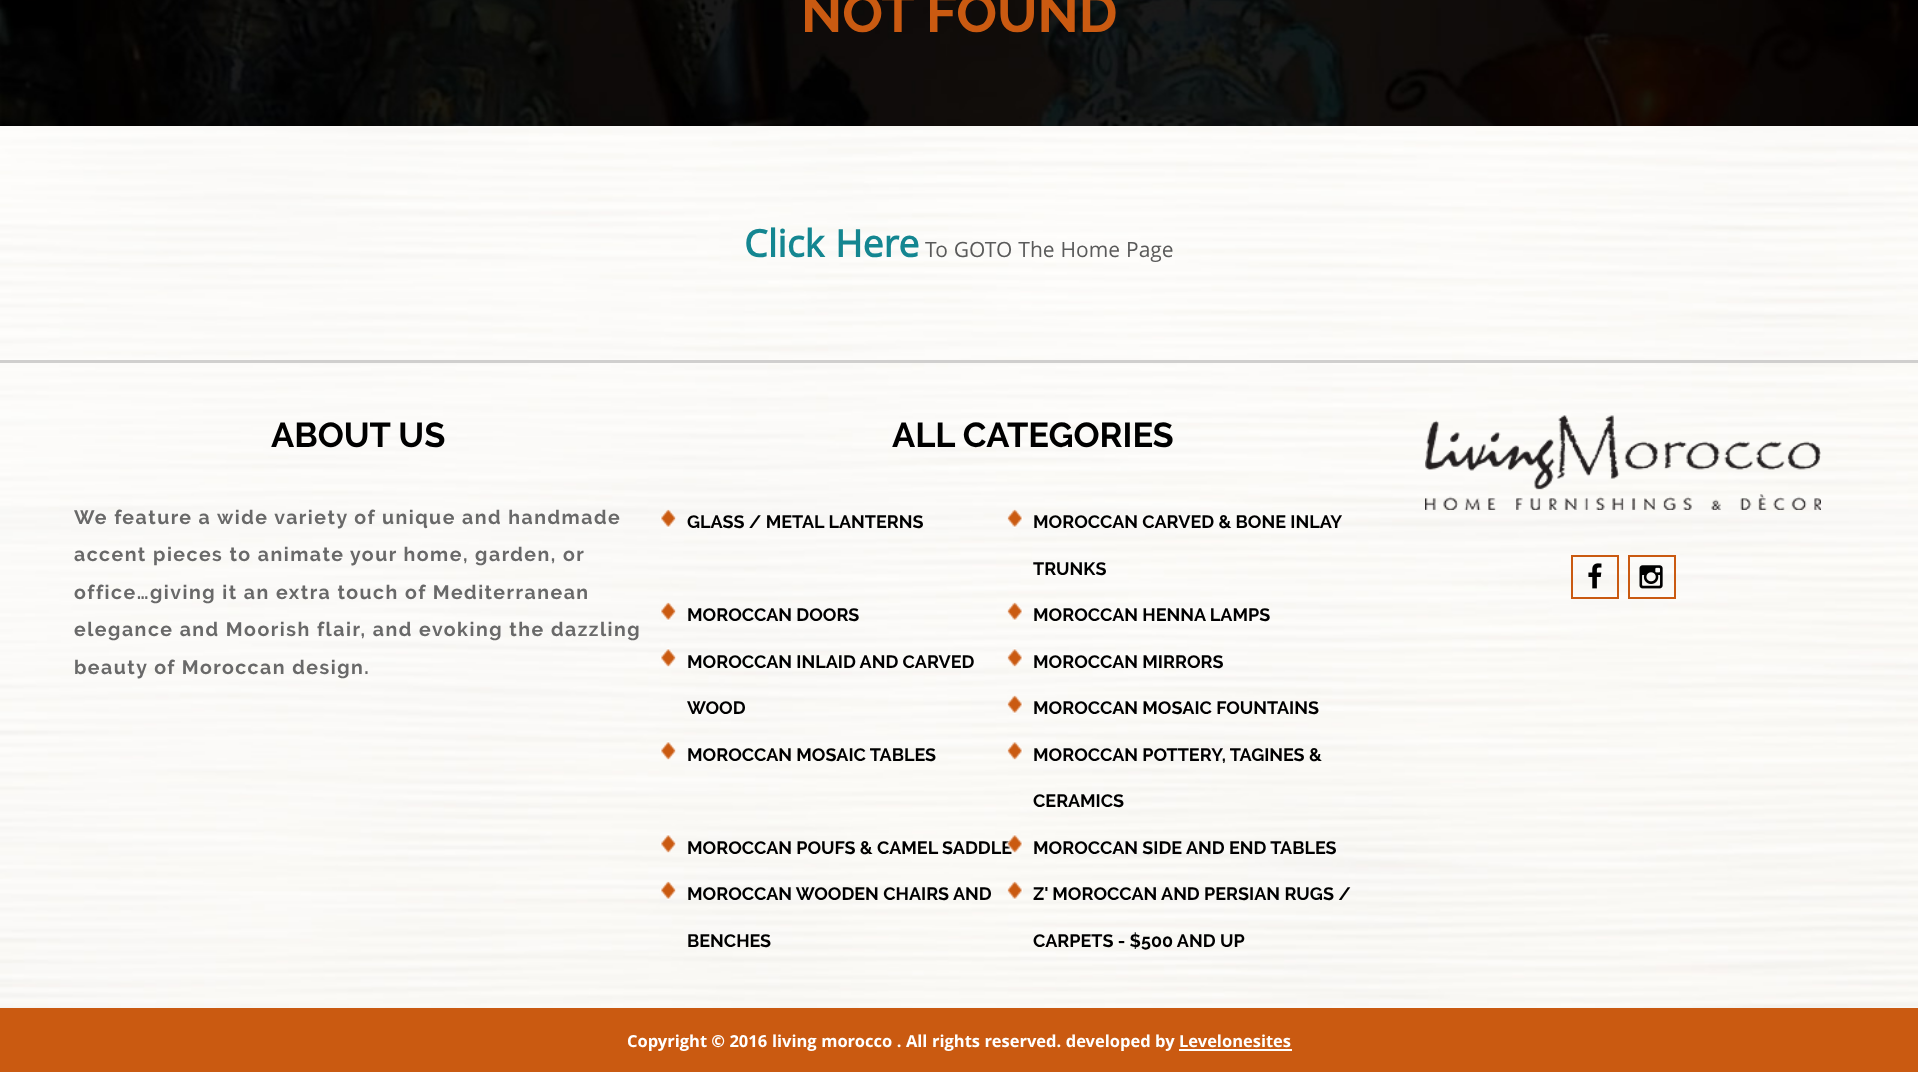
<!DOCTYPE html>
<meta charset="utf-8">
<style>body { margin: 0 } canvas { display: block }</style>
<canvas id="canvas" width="1918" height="1072"></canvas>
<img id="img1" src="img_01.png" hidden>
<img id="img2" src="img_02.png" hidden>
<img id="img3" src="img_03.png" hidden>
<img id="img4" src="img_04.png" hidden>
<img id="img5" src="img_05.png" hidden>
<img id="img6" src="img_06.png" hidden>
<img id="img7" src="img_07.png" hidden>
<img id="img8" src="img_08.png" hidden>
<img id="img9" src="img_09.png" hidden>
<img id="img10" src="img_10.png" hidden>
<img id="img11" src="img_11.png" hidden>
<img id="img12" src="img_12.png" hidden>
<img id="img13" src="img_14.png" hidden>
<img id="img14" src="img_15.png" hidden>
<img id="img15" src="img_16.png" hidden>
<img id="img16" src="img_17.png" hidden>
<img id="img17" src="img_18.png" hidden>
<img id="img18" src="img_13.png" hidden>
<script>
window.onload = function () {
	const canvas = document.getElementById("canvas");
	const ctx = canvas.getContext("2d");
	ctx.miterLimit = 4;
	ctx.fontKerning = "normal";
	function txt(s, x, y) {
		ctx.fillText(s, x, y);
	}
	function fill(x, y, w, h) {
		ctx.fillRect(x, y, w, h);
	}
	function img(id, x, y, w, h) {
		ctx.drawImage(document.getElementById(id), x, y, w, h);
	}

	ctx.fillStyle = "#FFFFFF";
	fill(0, 0, 1918, 1072);
	img("img1", 0, 126, 1918, 882);
	img("img2", 0, 0, 1918, 126);
	ctx.fillStyle = "#D0CFCE";
	fill(0, 360, 1918, 3);
	img("img3", 660, 509, 16, 19);
	img("img4", 1007, 509, 16, 19);
	img("img5", 660, 602, 16, 19);
	img("img6", 1007, 602, 16, 19);
	img("img7", 660, 648, 16, 19);
	img("img8", 1007, 648, 16, 19);
	img("img9", 1006, 695, 17, 19);
	img("img10", 660, 741, 16, 19);
	img("img11", 1006, 742, 17, 18);
	img("img12", 660, 834, 17, 19);
	img("img13", 660, 881, 16, 19);
	img("img14", 1006, 881, 17, 19);
	img("img15", 1425, 415, 396, 95);
	ctx.strokeStyle = "#CA5A11";
	ctx.lineWidth = 2;
	ctx.strokeRect(1572, 556, 46, 42);
	img("img16", 1588, 563, 14, 26);
	ctx.strokeRect(1629, 556, 46, 42);
	img("img17", 1639, 565, 24, 24);
	ctx.fillStyle = "#CA5A11";
	fill(0, 1008, 1918, 64);
	ctx.fillStyle = "#FFFFFF";
	fill(1179, 1049, 113, 2);
	ctx.font = "bold 54px Raleway";
	ctx.fillStyle = "#CA5A11";
	txt("NOT FOUND", 801, 32);
	ctx.wordSpacing = "1px";
	ctx.font = "bold 37.5px Open Sans";
	ctx.fillStyle = "#148691";
	txt("Click Here", 744, 257);
	ctx.wordSpacing = "0.5px";
	ctx.font = "21px Open Sans";
	ctx.fillStyle = "#5A5A5A";
	txt("To GOTO The Home Page", 925, 257);
	ctx.wordSpacing = "0px";
	ctx.font = "bold 34.5px Raleway";
	ctx.fillStyle = "#000000";
	txt("ABOUT US", 271, 447);
	ctx.letterSpacing = "1.5px";
	ctx.font = "bold 19.5px Raleway";
	ctx.fillStyle = "#696969";
	txt("We feature a wide variety of unique and handmade", 74, 524);
	txt("accent pieces to animate your home, garden, or", 74, 561);
	txt("office…giving it an extra touch of Mediterranean", 74, 599);
	txt("elegance and Moorish flair, and evoking the dazzling", 74, 636);
	txt("beauty of Moroccan design.", 74, 674);
	ctx.letterSpacing = "0px";
	ctx.font = "bold 34.5px Raleway";
	ctx.fillStyle = "#000000";
	txt("ALL CATEGORIES", 892, 447);
	ctx.font = "bold 18px Raleway";
	txt("GLASS / METAL LANTERNS", 687, 528);
	txt("MOROCCAN CARVED & BONE INLAY", 1033, 528);
	txt("TRUNKS", 1033, 575);
	txt("MOROCCAN DOORS", 687, 621);
	txt("MOROCCAN HENNA LAMPS", 1033, 621);
	txt("MOROCCAN INLAID AND CARVED", 687, 668);
	txt("WOOD", 687, 714);
	txt("MOROCCAN MIRRORS", 1033, 668);
	txt("MOROCCAN MOSAIC FOUNTAINS", 1033, 714);
	txt("MOROCCAN MOSAIC TABLES", 687, 761);
	txt("MOROCCAN POTTERY, TAGINES &", 1033, 761);
	txt("CERAMICS", 1033, 807);
	txt("MOROCCAN POUFS & CAMEL SADDLE", 687, 854);
	img("img18", 1006, 834, 17, 20);
	txt("MOROCCAN SIDE AND END TABLES", 1033, 854);
	txt("MOROCCAN WOODEN CHAIRS AND", 687, 900);
	txt("BENCHES", 687, 947);
	txt("Z' MOROCCAN AND PERSIAN RUGS /", 1033, 900);
	txt("CARPETS - $500 AND UP", 1033, 947);
	ctx.font = "bold 16.5px 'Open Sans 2'";
	ctx.fillStyle = "#FFFFFF";
	txt("Copyright © 2016", 627, 1047);
	ctx.wordSpacing = "0.25px";
	txt("living morocco . All rights reserved. developed by", 772, 1047);
	ctx.wordSpacing = "0px";
	txt("Levelonesites", 1179, 1047);
};
</script>
